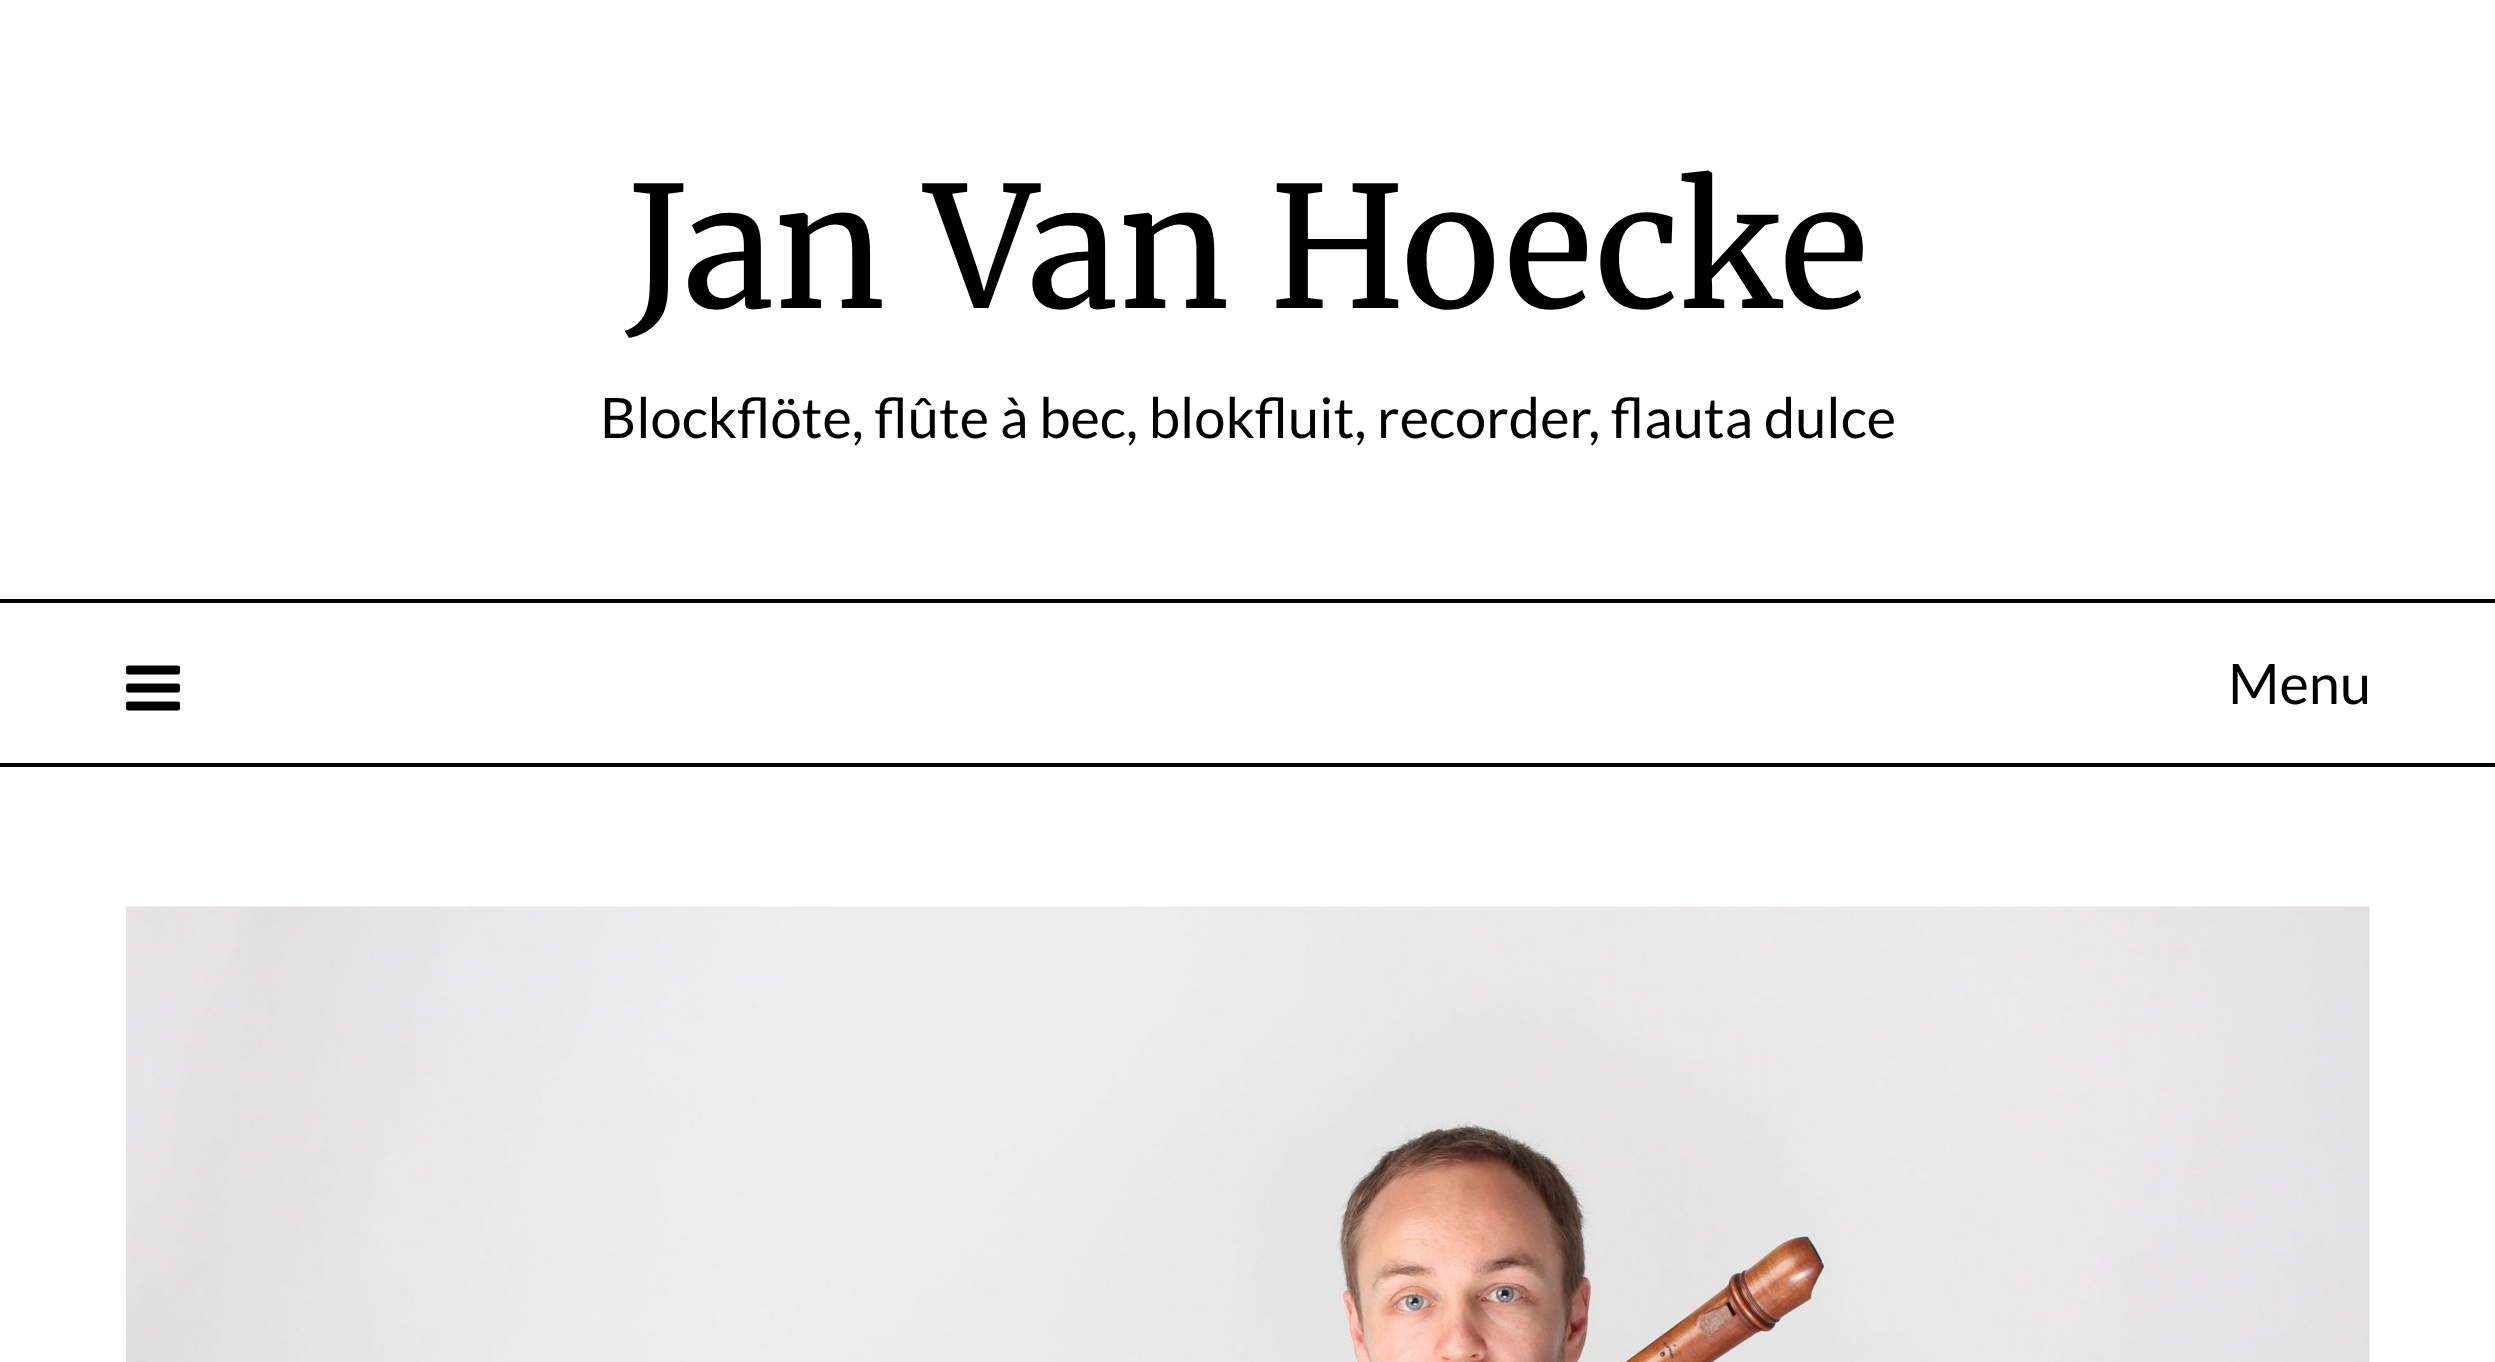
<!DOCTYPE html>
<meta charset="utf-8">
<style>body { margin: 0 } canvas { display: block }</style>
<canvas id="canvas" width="2495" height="1362"></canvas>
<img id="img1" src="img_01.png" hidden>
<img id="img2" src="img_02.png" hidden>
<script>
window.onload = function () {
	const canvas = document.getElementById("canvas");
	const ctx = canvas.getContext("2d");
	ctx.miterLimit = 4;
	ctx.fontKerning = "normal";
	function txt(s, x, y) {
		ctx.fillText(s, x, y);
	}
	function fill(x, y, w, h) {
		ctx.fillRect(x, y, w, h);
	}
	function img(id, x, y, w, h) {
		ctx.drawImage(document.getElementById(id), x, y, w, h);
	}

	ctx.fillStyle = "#FFFFFF";
	fill(0, 0, 2495, 1362);
	ctx.fillStyle = "#000000";
	fill(0, 599, 2495, 4);
	fill(0, 763, 2495, 4);
	img("img1", 126, 665, 54, 46);
	img("img2", 126, 906, 2244, 456);
	ctx.font = "168px Merriweather";
	txt("Jan Van Hoecke", 627, 308);
	ctx.font = "56px Lato";
	txt("Blockflöte, flûte à bec, blokfluit, recorder, flauta dulce", 600, 438);
	txt("Menu", 2228, 704);
};
</script>
